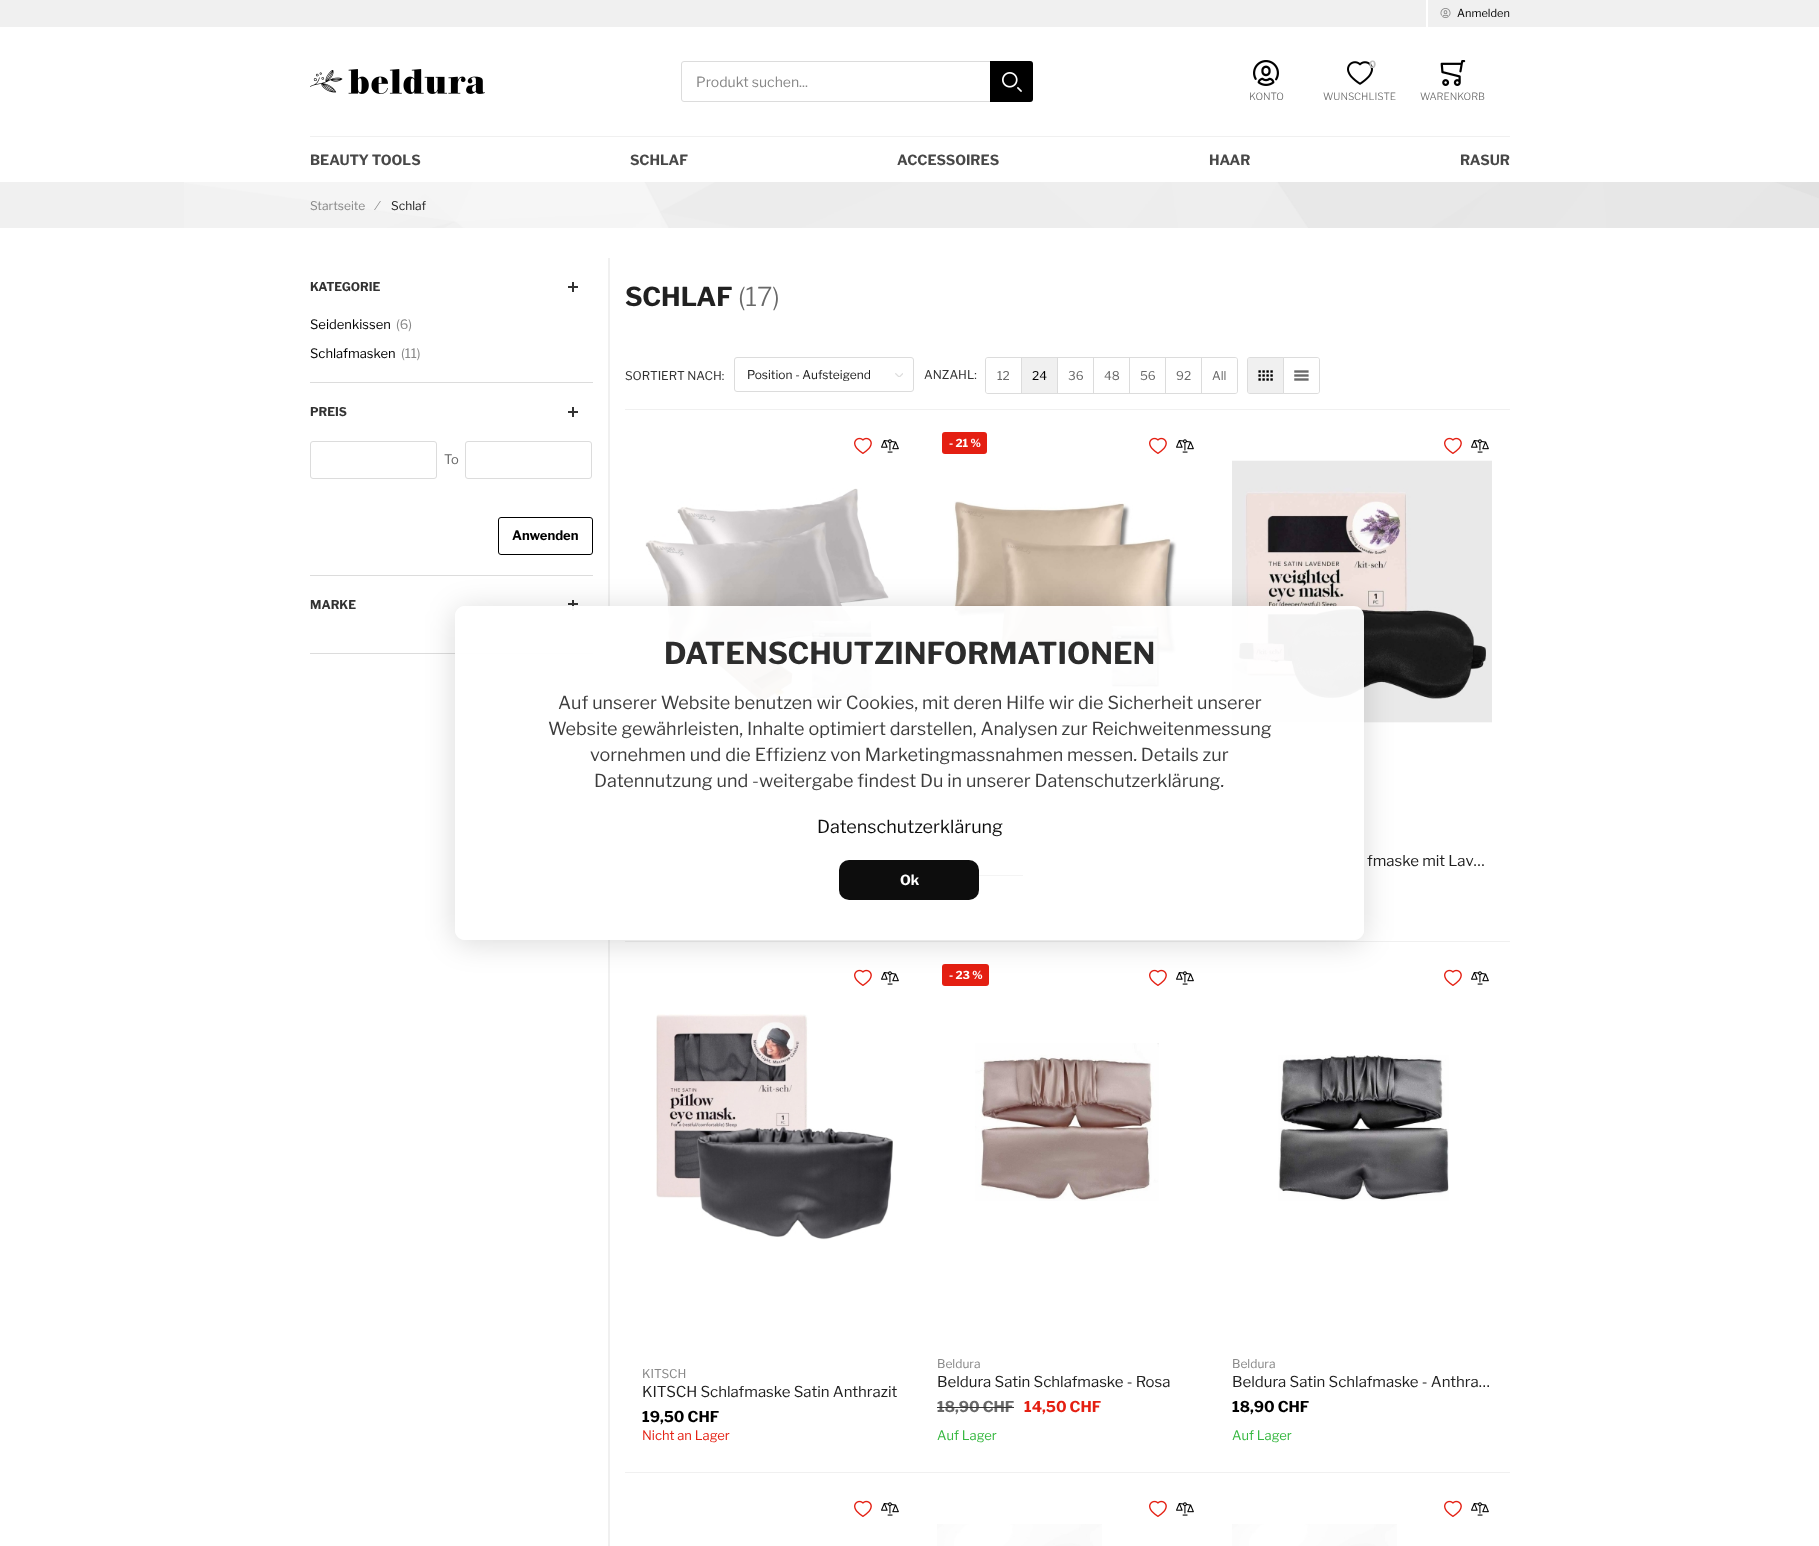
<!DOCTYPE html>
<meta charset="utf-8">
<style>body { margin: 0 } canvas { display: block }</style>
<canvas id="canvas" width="1819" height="1546"></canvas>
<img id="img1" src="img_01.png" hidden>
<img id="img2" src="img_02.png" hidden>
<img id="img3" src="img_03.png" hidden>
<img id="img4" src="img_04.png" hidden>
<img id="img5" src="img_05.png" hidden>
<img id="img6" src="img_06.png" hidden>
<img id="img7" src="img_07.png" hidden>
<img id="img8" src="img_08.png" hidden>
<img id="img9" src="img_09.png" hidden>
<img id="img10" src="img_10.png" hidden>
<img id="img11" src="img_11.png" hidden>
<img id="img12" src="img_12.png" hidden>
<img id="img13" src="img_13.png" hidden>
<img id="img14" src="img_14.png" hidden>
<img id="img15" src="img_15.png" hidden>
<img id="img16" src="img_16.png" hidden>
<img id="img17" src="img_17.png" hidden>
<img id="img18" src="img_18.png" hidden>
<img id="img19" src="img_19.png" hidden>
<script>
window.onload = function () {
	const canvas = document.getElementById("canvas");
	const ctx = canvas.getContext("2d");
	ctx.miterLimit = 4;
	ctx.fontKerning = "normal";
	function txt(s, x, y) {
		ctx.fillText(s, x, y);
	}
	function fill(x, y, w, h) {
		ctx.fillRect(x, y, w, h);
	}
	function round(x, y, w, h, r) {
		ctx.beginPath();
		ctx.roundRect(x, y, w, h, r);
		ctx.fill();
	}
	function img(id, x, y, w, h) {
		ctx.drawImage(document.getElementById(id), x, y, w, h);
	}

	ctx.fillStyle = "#FFFFFF";
	fill(0, 0, 1819, 1546);
	ctx.fillStyle = "#F0F0F0";
	fill(0, 0, 1819, 27);
	ctx.fillStyle = "#FFFFFF";
	fill(1426, 0, 2, 27);
	img("img1", 1440, 8, 11, 10);
	ctx.fillStyle = "#F0F0F0";
	fill(310, 136, 1200, 1);
	img("img2", 310, 69, 175, 25);
	ctx.beginPath();
	ctx.roundRect(681.5, 61.5, 351, 40, 2.5);
	ctx.strokeStyle = "#DCDCDC";
	ctx.stroke();
	ctx.fillStyle = "#000000";
	ctx.beginPath();
	ctx.roundRect(990, 61, 43, 41, [0, 3, 3, 0]);
	ctx.fill();
	img("img3", 1002, 72, 20, 20);
	img("img4", 1253, 60, 26, 26);
	img("img5", 1347, 61, 26, 24);
	img("img6", 1440, 60, 26, 26);
	ctx.fillStyle = "#F0F0F0";
	fill(0, 182, 184, 46);
	img("img7", 184, 182, 1635, 46);
	fill(608, 258, 2, 1288);
	ctx.fillStyle = "#DCDCDC";
	fill(310, 382, 283, 1);
	ctx.fillStyle = "#333333";
	fill(568, 286, 10, 2);
	fill(572, 282, 2, 10);
	ctx.fillStyle = "#DCDCDC";
	fill(310, 575, 283, 1);
	ctx.fillStyle = "#333333";
	fill(568, 411, 10, 2);
	fill(572, 407, 2, 10);
	ctx.beginPath();
	ctx.roundRect(310.5, 441.5, 126, 37, 2.5);
	ctx.stroke();
	ctx.beginPath();
	ctx.roundRect(465.5, 441.5, 126, 37, 2.5);
	ctx.stroke();
	ctx.beginPath();
	ctx.roundRect(498.5, 517.5, 94, 37, 2.5);
	ctx.strokeStyle = "#000000";
	ctx.stroke();
	ctx.fillStyle = "#DCDCDC";
	fill(310, 653, 283, 1);
	ctx.fillStyle = "#333333";
	fill(568, 603, 10, 2);
	fill(572, 600, 2, 10);
	ctx.fillStyle = "#F0F0F0";
	fill(625, 409, 885, 1);
	img("img8", 895, 373, 8, 4);
	ctx.beginPath();
	ctx.roundRect(734.5, 357.5, 179, 34, 2.5);
	ctx.strokeStyle = "#DCDCDC";
	ctx.stroke();
	ctx.beginPath();
	ctx.roundRect(985.5, 357.5, 36, 36, [2.5, 0, 0, 2.5]);
	ctx.stroke();
	ctx.fillStyle = "#FFFFFF";
	ctx.beginPath();
	ctx.roundRect(986, 358, 35, 35, [2, 0, 0, 2]);
	ctx.fill();
	ctx.strokeRect(1021.5, 357.5, 36, 36);
	ctx.fillStyle = "#F0F0F0";
	fill(1022, 358, 35, 35);
	ctx.strokeRect(1057.5, 357.5, 36, 36);
	ctx.strokeRect(1093.5, 357.5, 36, 36);
	ctx.strokeRect(1129.5, 357.5, 36, 36);
	ctx.strokeRect(1165.5, 357.5, 36, 36);
	ctx.beginPath();
	ctx.roundRect(1201.5, 357.5, 36, 36, [0, 2.5, 2.5, 0]);
	ctx.stroke();
	ctx.fillStyle = "#FFFFFF";
	ctx.beginPath();
	ctx.roundRect(1202, 358, 35, 35, [0, 2, 2, 0]);
	ctx.fill();
	ctx.beginPath();
	ctx.roundRect(1247.5, 357.5, 36, 36, [2.5, 0, 0, 2.5]);
	ctx.stroke();
	ctx.fillStyle = "#F0F0F0";
	ctx.beginPath();
	ctx.roundRect(1248, 358, 35, 35, [2, 0, 0, 2]);
	ctx.fill();
	img("img9", 1258, 370, 15, 11);
	ctx.beginPath();
	ctx.roundRect(1283.5, 357.5, 36, 36, [0, 2.5, 2.5, 0]);
	ctx.stroke();
	ctx.fillStyle = "#FFFFFF";
	ctx.beginPath();
	ctx.roundRect(1284, 358, 35, 35, [0, 2, 2, 0]);
	ctx.fill();
	img("img10", 1294, 370, 15, 11);
	img("img11", 854, 437, 18, 17);
	img("img12", 881, 439, 18, 14);
	img("img13", 645, 488, 244, 214);
	ctx.fillStyle = "#F0F0F0";
	fill(625, 941, 885, 1);
	ctx.fillStyle = "#E41F12";
	round(942, 432, 45, 22, 3);
	img("img11", 1149, 437, 18, 17);
	img("img12", 1176, 439, 18, 14);
	ctx.fillStyle = "#333333";
	fill(937, 875, 86, 1);
	img("img14", 953, 501, 224, 186);
	img("img15", 1232, 460, 260, 263);
	img("img11", 1444, 437, 18, 17);
	img("img12", 1471, 439, 18, 14);
	img("img16", 656, 1014, 237, 226);
	img("img11", 854, 969, 18, 17);
	img("img12", 881, 971, 18, 14);
	ctx.fillStyle = "#F0F0F0";
	fill(625, 1472, 885, 1);
	ctx.fillStyle = "#E41F12";
	round(942, 964, 47, 22, 3);
	img("img11", 1149, 969, 18, 17);
	img("img12", 1176, 971, 18, 14);
	img("img17", 975, 1043, 184, 158);
	img("img18", 1278, 1055, 171, 146);
	img("img11", 1444, 969, 18, 17);
	img("img12", 1471, 971, 18, 14);
	img("img11", 854, 1500, 18, 17);
	img("img12", 881, 1502, 18, 14);
	img("img11", 1149, 1500, 18, 17);
	img("img12", 1176, 1502, 18, 14);
	img("img19", 937, 1524, 165, 22);
	img("img11", 1444, 1500, 18, 17);
	img("img12", 1471, 1502, 18, 14);
	img("img19", 1232, 1524, 165, 22);
	ctx.save();
	ctx.beginPath();
	ctx.moveTo(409, 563);
	ctx.lineTo(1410, 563);
	ctx.lineTo(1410, 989);
	ctx.lineTo(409, 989);
	ctx.closePath();
	ctx.moveTo(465, 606);
	ctx.lineTo(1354, 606);
	ctx.bezierCurveTo(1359.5, 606, 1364, 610.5, 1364, 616);
	ctx.lineTo(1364, 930);
	ctx.bezierCurveTo(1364, 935.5, 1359.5, 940, 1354, 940);
	ctx.lineTo(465, 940);
	ctx.bezierCurveTo(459.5, 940, 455, 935.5, 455, 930);
	ctx.lineTo(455, 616);
	ctx.bezierCurveTo(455, 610.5, 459.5, 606, 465, 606);
	ctx.closePath();
	ctx.clip("evenodd");
	ctx.fillStyle = "rgba(0, 0, 0, 0.15)";
	ctx.filter = "blur(15px)";
	ctx.beginPath();
	ctx.roundRect(455, 609, 909, 334, 10);
	ctx.fill();
	ctx.filter = "none";
	ctx.restore();
	ctx.fillStyle = "rgba(255, 255, 255, 0.95)";
	round(455, 606, 909, 334, 10);
	ctx.fillStyle = "rgba(0, 0, 0, 0.95)";
	round(839, 860, 140, 40, 10);
	ctx.font = "100 11px 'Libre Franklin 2'";
	ctx.fillStyle = "#000000";
	txt("Anmelden", 1457, 17);
	ctx.font = "100 14px 'Libre Franklin 2'";
	ctx.fillStyle = "#888888";
	txt("Produkt suchen...", 696, 87);
	ctx.font = "100 10px 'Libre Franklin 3'";
	ctx.fillStyle = "#696969";
	txt("KONTO", 1249, 100);
	ctx.font = "100 10px Libre Franklin";
	ctx.fillStyle = "#BEBEBE";
	txt("0", 1369, 68);
	ctx.font = "100 10px 'Libre Franklin 3'";
	ctx.fillStyle = "#696969";
	txt("WUNSCHLISTE", 1323, 100);
	txt("WARENKORB", 1420, 100);
	ctx.font = "100 14px Libre Franklin";
	ctx.fillStyle = "#484848";
	txt("BEAUTY TOOLS", 310, 165);
	txt("SCHLAF", 630, 165);
	txt("ACCESSOIRES", 897, 165);
	txt("HAAR", 1209, 165);
	txt("RASUR", 1460, 165);
	ctx.font = "100 12px 'Libre Franklin 2'";
	ctx.fillStyle = "#888888";
	txt("Startseite", 310, 210);
	txt("⁄", 376, 210);
	ctx.fillStyle = "#212121";
	txt("Schlaf", 391, 210);
	ctx.font = "100 12px Libre Franklin";
	ctx.fillStyle = "#333333";
	txt("KATEGORIE", 310, 291);
	ctx.font = "100 13px 'Libre Franklin 2'";
	ctx.fillStyle = "#000000";
	txt("Seidenkissen", 310, 329);
	ctx.fillStyle = "#888888";
	txt("(6)", 396, 329);
	ctx.fillStyle = "#000000";
	txt("Schlafmasken", 310, 358);
	ctx.fillStyle = "#888888";
	txt("(11)", 401, 358);
	ctx.font = "100 12px Libre Franklin";
	ctx.fillStyle = "#333333";
	txt("PREIS", 310, 416);
	ctx.font = "100 13px 'Libre Franklin 2'";
	ctx.fillStyle = "#696969";
	txt("To", 444, 464);
	ctx.font = "100 13px Libre Franklin";
	ctx.fillStyle = "#000000";
	txt("Anwenden", 512, 540);
	ctx.font = "100 12px Libre Franklin";
	ctx.fillStyle = "#333333";
	txt("MARKE", 310, 609);
	ctx.font = "100 26px Libre Franklin";
	ctx.fillStyle = "#212121";
	txt("SCHLAF", 625, 306);
	ctx.font = "100 26px 'Libre Franklin 3'";
	ctx.fillStyle = "#696969";
	txt("(17)", 738, 306);
	ctx.font = "100 12px 'Libre Franklin 2'";
	ctx.fillStyle = "#333333";
	txt("SORTIERT NACH:", 625, 380);
	ctx.fillStyle = "#212121";
	txt("Position - Aufsteigend", 747, 379);
	ctx.fillStyle = "#333333";
	txt("ANZAHL:", 924, 379);
	ctx.fillStyle = "#696969";
	txt("12", 997, 380);
	ctx.fillStyle = "#000000";
	txt("24", 1032, 380);
	ctx.fillStyle = "#696969";
	txt("36", 1068, 380);
	txt("48", 1104, 380);
	txt("56", 1140, 380);
	txt("92", 1176, 380);
	txt("All", 1212, 380);
	ctx.font = "100 11px Libre Franklin";
	ctx.fillStyle = "#FFFFFF";
	txt("- 21 %", 949, 447);
	ctx.font = "100 15px 'Libre Franklin 2'";
	ctx.fillStyle = "#212121";
	txt("fmaske mit Lav…", 1367, 866);
	ctx.font = "100 12px 'Libre Franklin 2'";
	ctx.fillStyle = "#888888";
	txt("KITSCH", 642, 1378);
	ctx.font = "100 15px 'Libre Franklin 2'";
	ctx.fillStyle = "#212121";
	txt("KITSCH Schlafmaske Satin Anthrazit", 642, 1397);
	ctx.font = "100 15px Libre Franklin";
	ctx.fillStyle = "#000000";
	txt("19,50 CHF", 642, 1422);
	ctx.font = "100 13px 'Libre Franklin 2'";
	ctx.fillStyle = "#E41F12";
	txt("Nicht an Lager", 642, 1440);
	ctx.font = "100 11px Libre Franklin";
	ctx.fillStyle = "#FFFFFF";
	txt("- 23 %", 949, 979);
	ctx.font = "100 12px 'Libre Franklin 2'";
	ctx.fillStyle = "#888888";
	txt("Beldura", 937, 1368);
	ctx.font = "100 15px 'Libre Franklin 2'";
	ctx.fillStyle = "#212121";
	txt("Beldura Satin Schlafmaske - Rosa", 937, 1387);
	ctx.font = "100 15px Libre Franklin";
	ctx.fillStyle = "#696969";
	txt("18,90 CHF", 937, 1412);
	ctx.fillStyle = "#333333";
	fill(937, 1407, 77, 1);
	ctx.fillStyle = "#E41F12";
	txt("14,50 CHF", 1024, 1412);
	ctx.font = "100 13px 'Libre Franklin 2'";
	ctx.fillStyle = "#37B841";
	txt("Auf Lager", 937, 1440);
	ctx.font = "100 12px 'Libre Franklin 2'";
	ctx.fillStyle = "#888888";
	txt("Beldura", 1232, 1368);
	ctx.font = "100 15px 'Libre Franklin 2'";
	ctx.fillStyle = "#212121";
	txt("Beldura Satin Schlafmaske - Anthra…", 1232, 1387);
	ctx.font = "100 15px Libre Franklin";
	ctx.fillStyle = "#000000";
	txt("18,90 CHF", 1232, 1412);
	ctx.font = "100 13px 'Libre Franklin 2'";
	ctx.fillStyle = "#37B841";
	txt("Auf Lager", 1232, 1440);
	ctx.font = "100 30px Libre Franklin";
	ctx.fillStyle = "#2C2C2C";
	txt("DATENSCHUTZINFORMATIONEN", 664, 664);
	ctx.font = "100 18px 'Libre Franklin 2'";
	ctx.fillStyle = "#3D3D3D";
	txt("Auf unserer Website benutzen wir Cookies, mit deren Hilfe wir die Sicherheit unserer", 558, 709);
	txt("Website gewährleisten, Inhalte optimiert darstellen, Analysen zur Reichweitenmessung", 548, 735);
	txt("vornehmen und die Effizienz von Marketingmassnahmen messen. Details zur", 590, 761);
	txt("Datennutzung und -weitergabe findest Du in unserer Datenschutzerklärung.", 594, 787);
	ctx.fillStyle = "#0D0D0D";
	txt("Datenschutzerklärung", 817, 833);
	ctx.font = "100 14px Libre Franklin";
	ctx.fillStyle = "#FFFFFF";
	txt("Ok", 900, 885);
};
</script>
